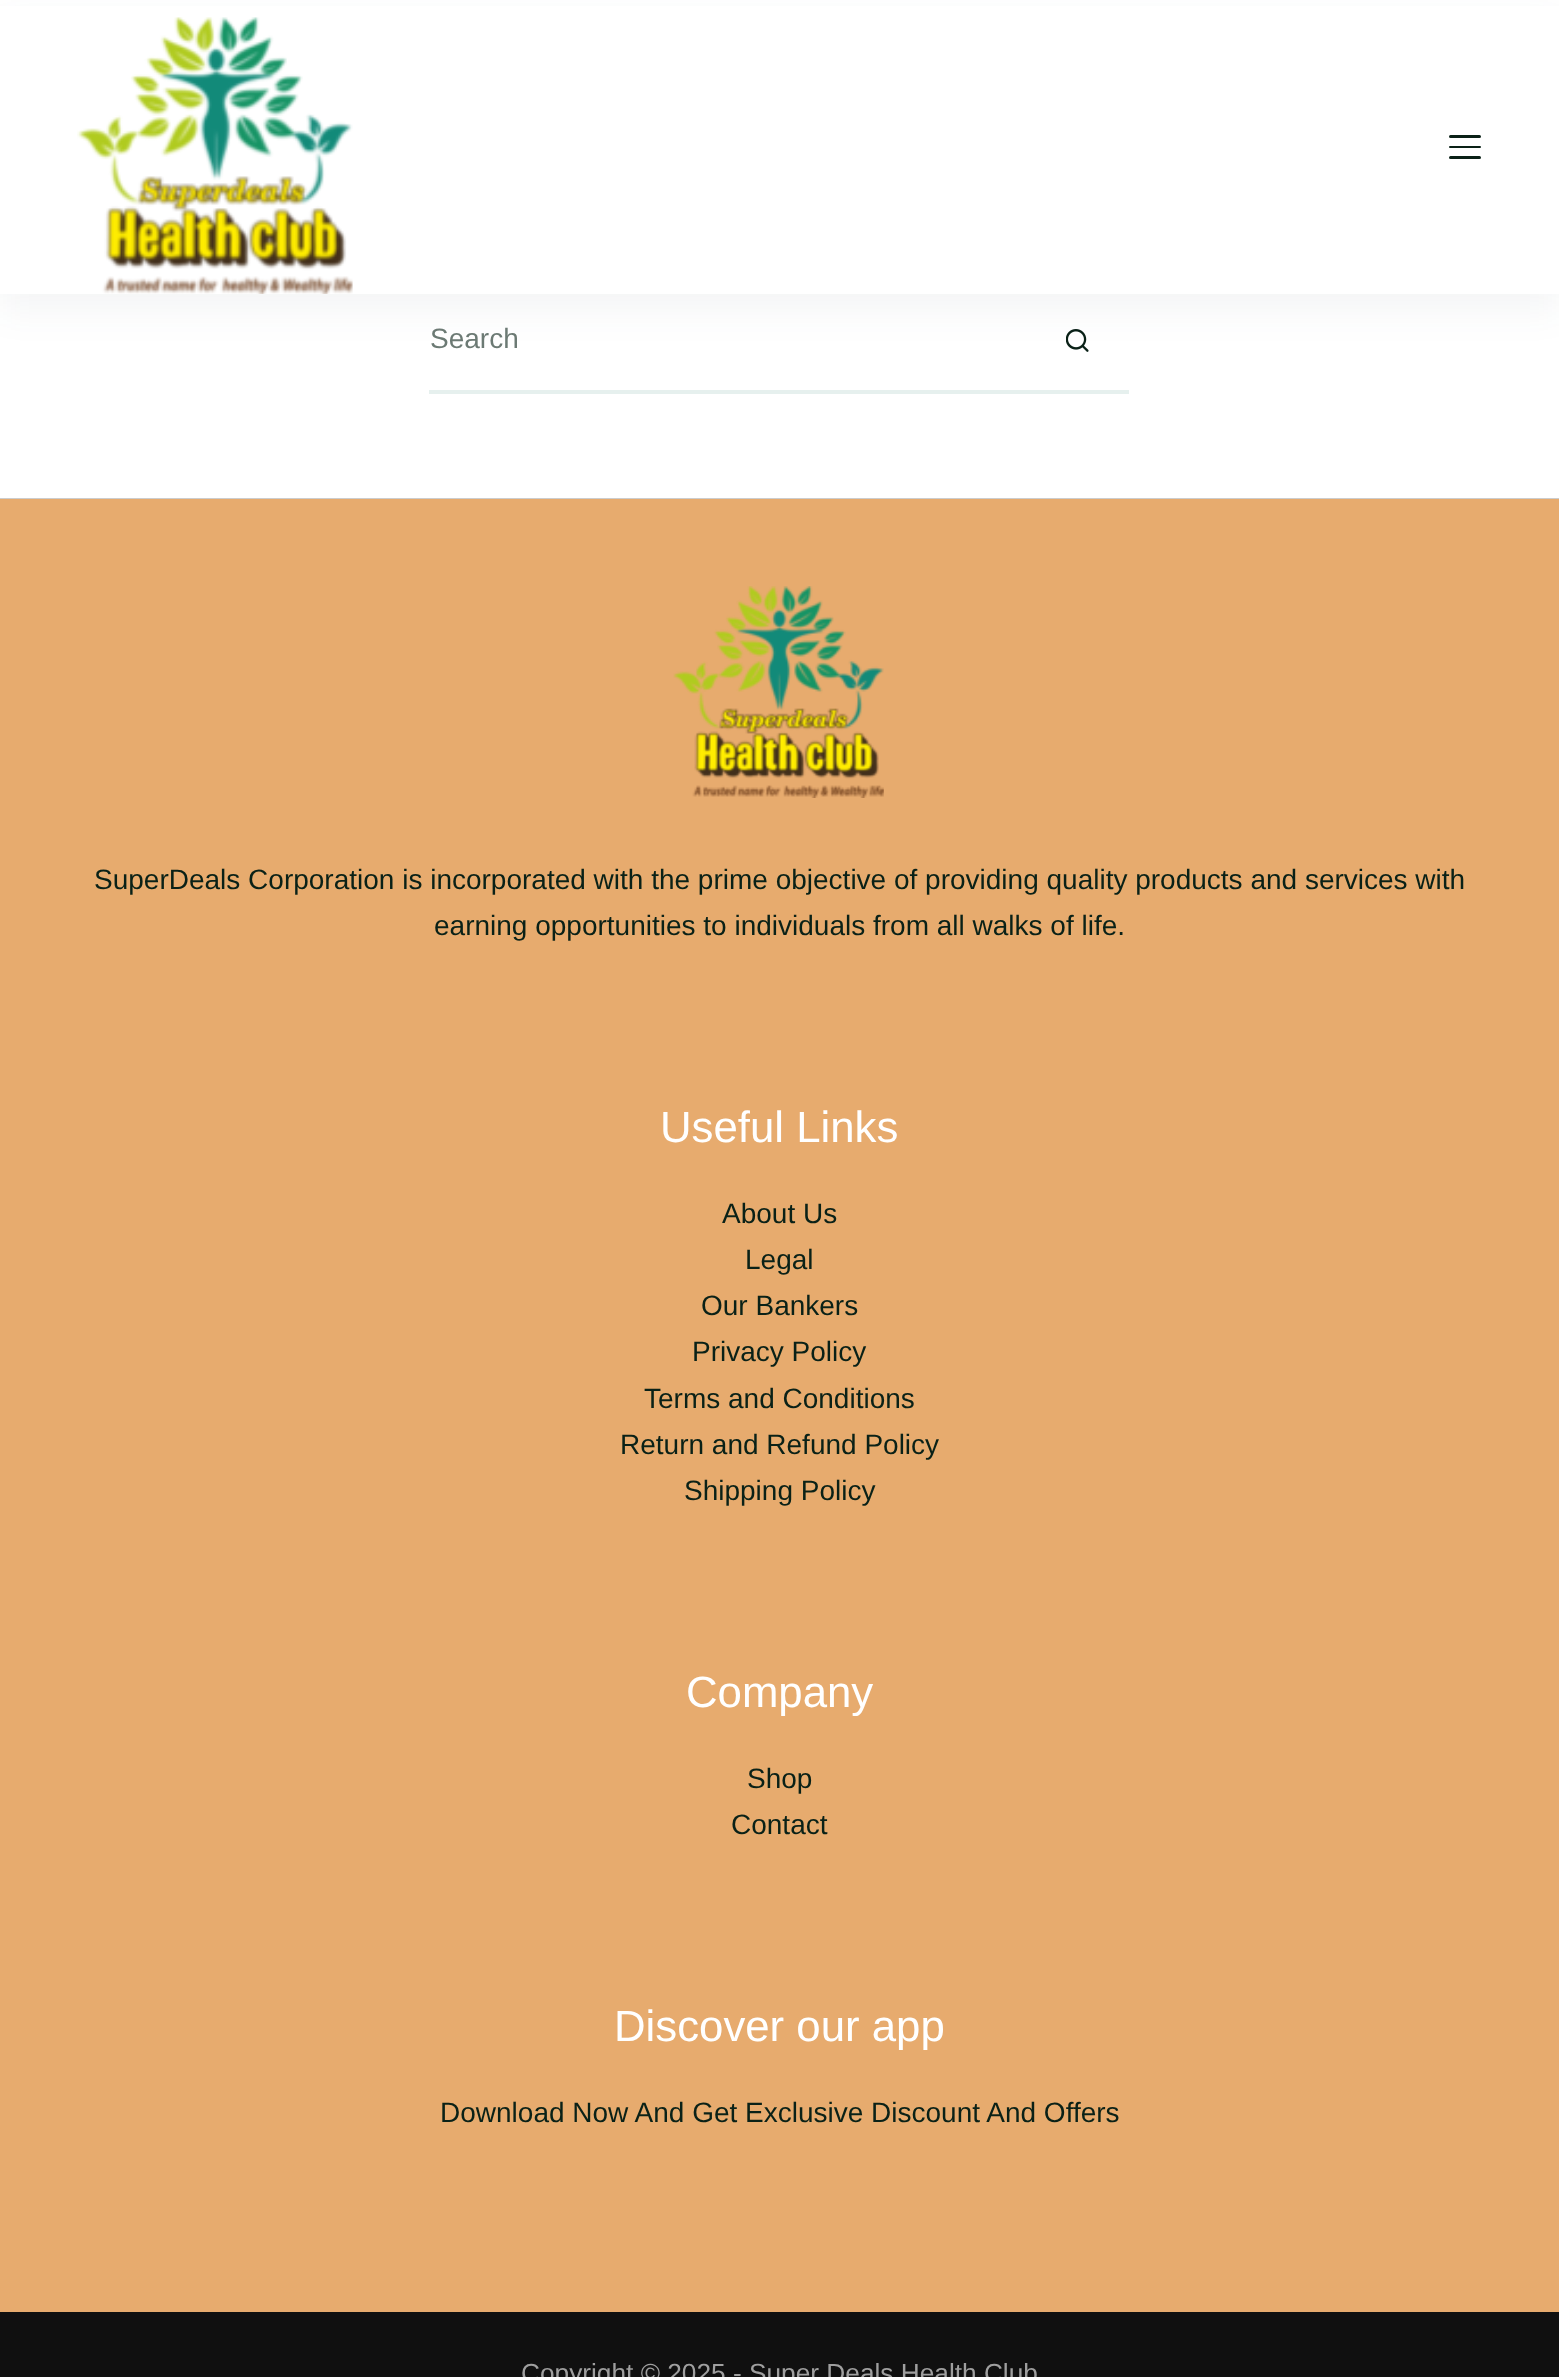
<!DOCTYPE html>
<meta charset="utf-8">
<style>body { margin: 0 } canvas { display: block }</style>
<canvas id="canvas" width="1559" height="2377"></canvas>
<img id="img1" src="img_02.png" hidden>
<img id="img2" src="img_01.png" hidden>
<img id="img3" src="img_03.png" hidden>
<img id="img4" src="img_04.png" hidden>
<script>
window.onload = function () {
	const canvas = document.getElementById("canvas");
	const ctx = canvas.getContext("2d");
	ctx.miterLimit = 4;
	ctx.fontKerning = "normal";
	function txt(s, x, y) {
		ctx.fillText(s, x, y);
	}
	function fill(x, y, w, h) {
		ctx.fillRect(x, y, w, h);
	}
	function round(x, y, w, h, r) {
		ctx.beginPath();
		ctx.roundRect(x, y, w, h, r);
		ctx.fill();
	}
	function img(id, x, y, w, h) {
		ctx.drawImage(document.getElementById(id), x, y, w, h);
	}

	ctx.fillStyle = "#FFFFFF";
	fill(0, 0, 1559, 2377);
	img("img1", 1066, 329, 23, 23);
	ctx.fillStyle = "rgba(44, 62, 80, 0.05)";
	ctx.filter = "blur(17.5px)";
	ctx.beginPath();
	ctx.rect(0, 18, 1559, 294);
	ctx.fill();
	ctx.filter = "none";
	ctx.fillStyle = "#FFFFFF";
	fill(0, 6, 1559, 288);
	img("img2", 77, 17, 276, 277);
	ctx.fillStyle = "#0A2117";
	round(1449, 135, 32, 3, 1.5);
	round(1449, 146, 32, 2, 1);
	round(1449, 156, 32, 3, 1.5);
	ctx.fillStyle = "#E6F0EE";
	fill(429, 390, 700, 4);
	img("img3", 0, 498, 1559, 1);
	ctx.fillStyle = "#E7AB6E";
	fill(0, 499, 1559, 1813);
	img("img4", 673, 586, 211, 212);
	ctx.fillStyle = "#101010";
	fill(0, 2312, 1559, 65);
	ctx.font = "28px Liberation Sans";
	ctx.fillStyle = "#6C7A74";
	txt("Search", 430, 348);
	ctx.fillStyle = "#0A2117";
	txt("SuperDeals Corporation is incorporated with the prime objective of providing quality products and services with", 94, 889);
	txt("earning opportunities to individuals from all walks of life.", 434, 935);
	ctx.font = "43.75px Liberation Sans";
	ctx.fillStyle = "#FFFFFF";
	txt("Useful Links", 660, 1142);
	ctx.font = "28px Liberation Sans";
	ctx.fillStyle = "#0A2117";
	txt("About Us", 722, 1223);
	txt("Legal", 745, 1269);
	txt("Our Bankers", 701, 1315);
	txt("Privacy Policy", 692, 1361);
	txt("Terms and Conditions", 644, 1408);
	txt("Return and Refund Policy", 620, 1454);
	txt("Shipping Policy", 684, 1500);
	ctx.font = "43.75px Liberation Sans";
	ctx.fillStyle = "#FFFFFF";
	txt("Company", 686, 1707);
	ctx.font = "28px Liberation Sans";
	ctx.fillStyle = "#0A2117";
	txt("Shop", 747, 1788);
	txt("Contact", 731, 1834);
	ctx.font = "43.75px Liberation Sans";
	ctx.fillStyle = "#FFFFFF";
	txt("Discover our app", 614, 2041);
	ctx.font = "28px Liberation Sans";
	ctx.fillStyle = "#0A2117";
	txt("Download Now And Get Exclusive Discount And Offers", 440, 2122);
	ctx.font = "26.25px Liberation Sans";
	ctx.fillStyle = "#9F9F9F";
	txt("Copyright © 2025 - Super Deals Health Club", 521, 2382);
};
</script>
